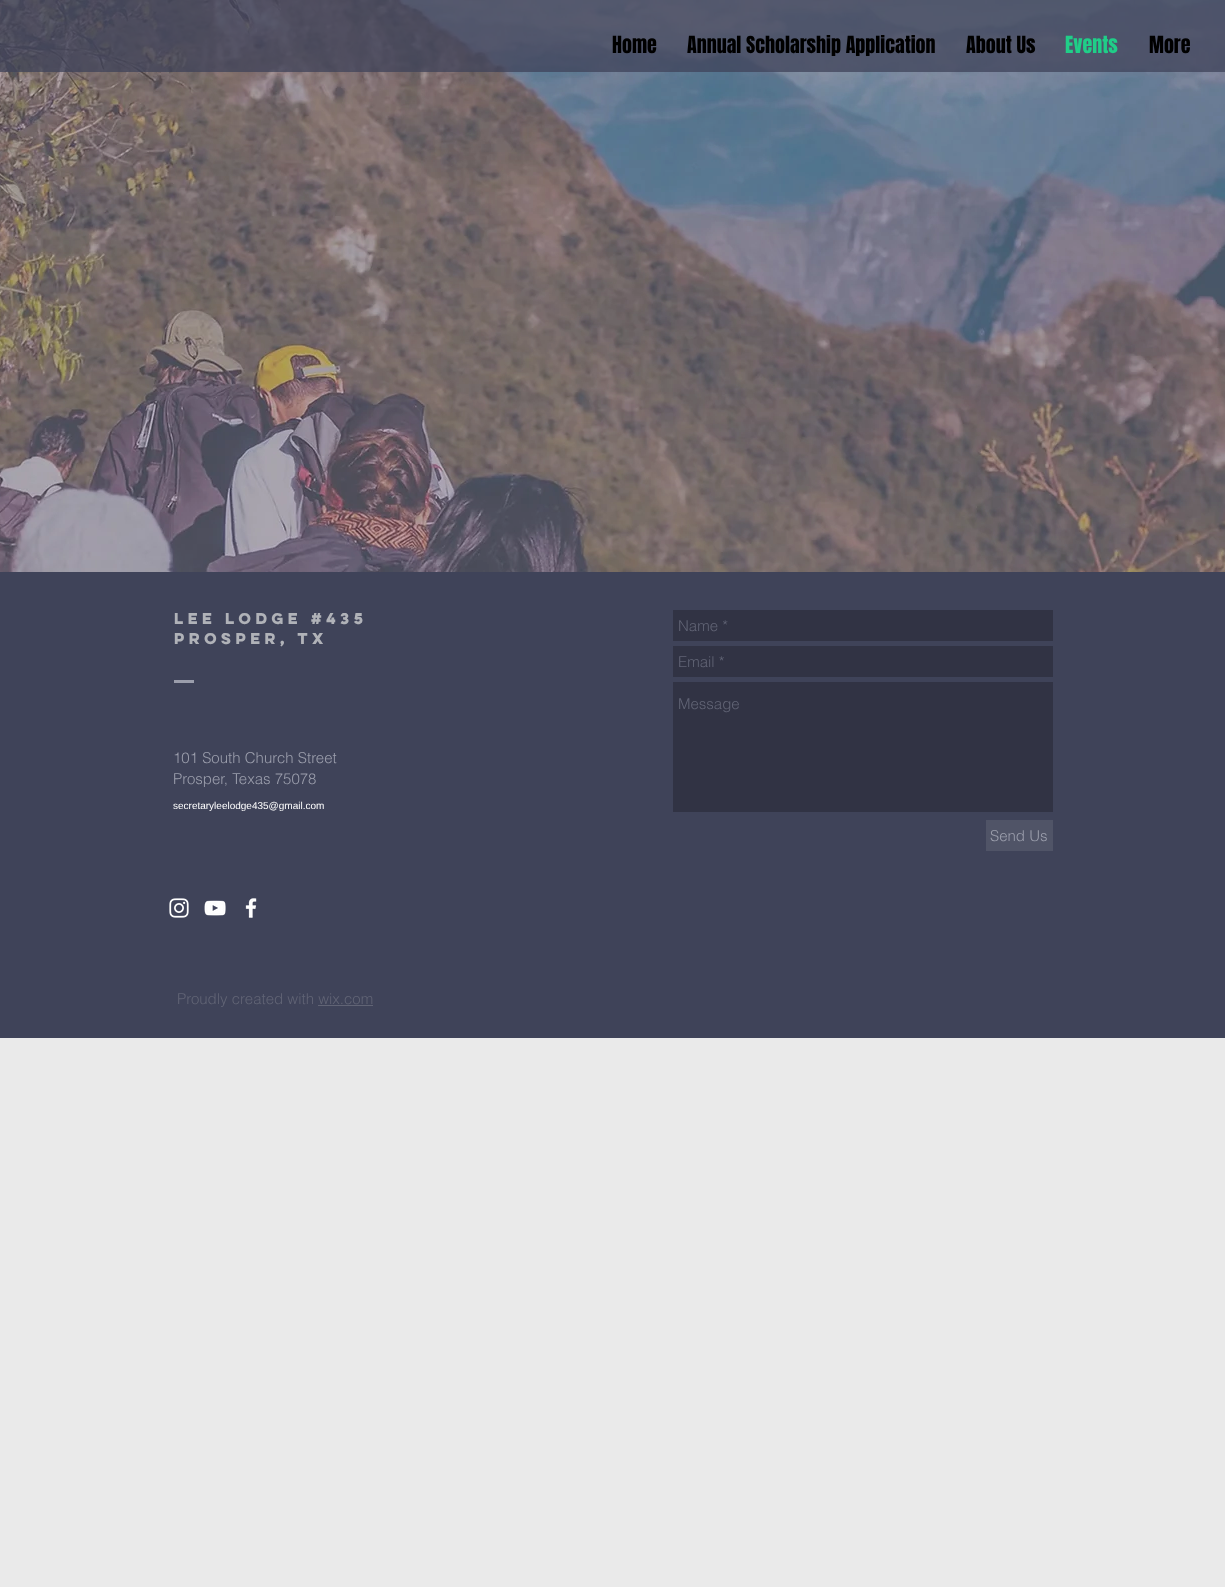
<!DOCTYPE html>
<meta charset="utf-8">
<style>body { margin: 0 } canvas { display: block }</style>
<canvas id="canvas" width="1225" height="1587"></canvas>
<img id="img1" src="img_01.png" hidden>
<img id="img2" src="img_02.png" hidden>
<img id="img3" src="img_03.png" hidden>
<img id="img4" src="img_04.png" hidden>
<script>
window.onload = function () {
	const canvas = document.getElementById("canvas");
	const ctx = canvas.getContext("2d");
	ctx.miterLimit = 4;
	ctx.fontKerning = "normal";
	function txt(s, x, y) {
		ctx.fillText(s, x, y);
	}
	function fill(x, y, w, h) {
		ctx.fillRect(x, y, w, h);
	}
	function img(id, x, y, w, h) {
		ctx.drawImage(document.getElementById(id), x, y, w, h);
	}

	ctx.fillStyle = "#EAEAEA";
	fill(0, 0, 1225, 1587);
	img("img1", 0, 0, 1225, 572);
	ctx.fillStyle = "rgba(63, 67, 89, 0.75)";
	fill(0, 0, 1225, 72);
	ctx.fillStyle = "#3F4359";
	fill(0, 572, 1225, 466);
	ctx.fillStyle = "#313344";
	fill(673, 610, 380, 31);
	fill(673, 646, 380, 31);
	fill(673, 682, 380, 130);
	ctx.fillStyle = "#505467";
	fill(986, 820, 67, 31);
	ctx.fillStyle = "#9B9EAC";
	fill(174, 680, 20, 3);
	img("img2", 169, 898, 20, 20);
	img("img3", 204, 900, 22, 16);
	img("img4", 245, 898, 12, 20);
	ctx.fillStyle = "#616475";
	fill(318, 1005, 55, 1);
	ctx.font = "20px Anton";
	ctx.fillStyle = "#000000";
	txt("Home", 612, 53);
	txt("Annual Scholarship Application", 687, 53);
	txt("About Us", 966, 53);
	ctx.fillStyle = "#20CE88";
	txt("Events", 1065, 53);
	ctx.fillStyle = "#000000";
	txt("More", 1149, 53);
	ctx.letterSpacing = "1.4px";
	ctx.font = "bold 14px 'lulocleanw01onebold'";
	ctx.fillStyle = "#B0B2B8";
	txt("Lee Lodge #435", 174, 624);
	txt("Prosper, Tx", 174, 644);
	ctx.letterSpacing = "0px";
	ctx.font = "300 15px helvetica";
	ctx.fillStyle = "#616475";
	txt("Name *", 678, 631);
	txt("Email *", 678, 667);
	txt("Message", 678, 709);
	ctx.fillStyle = "#9B9EAC";
	txt("Send Us", 990, 841);
	txt("101 South Church Street", 173, 763);
	txt("Prosper, Texas 75078", 173, 784);
	ctx.font = "10px Liberation Sans";
	ctx.fillStyle = "#FFFFFF";
	txt("secretaryleelodge435@gmail.com", 173, 809);
	ctx.font = "300 15px helvetica";
	ctx.fillStyle = "#616475";
	txt("Proudly created with wix.com", 177, 1004);
};
</script>
